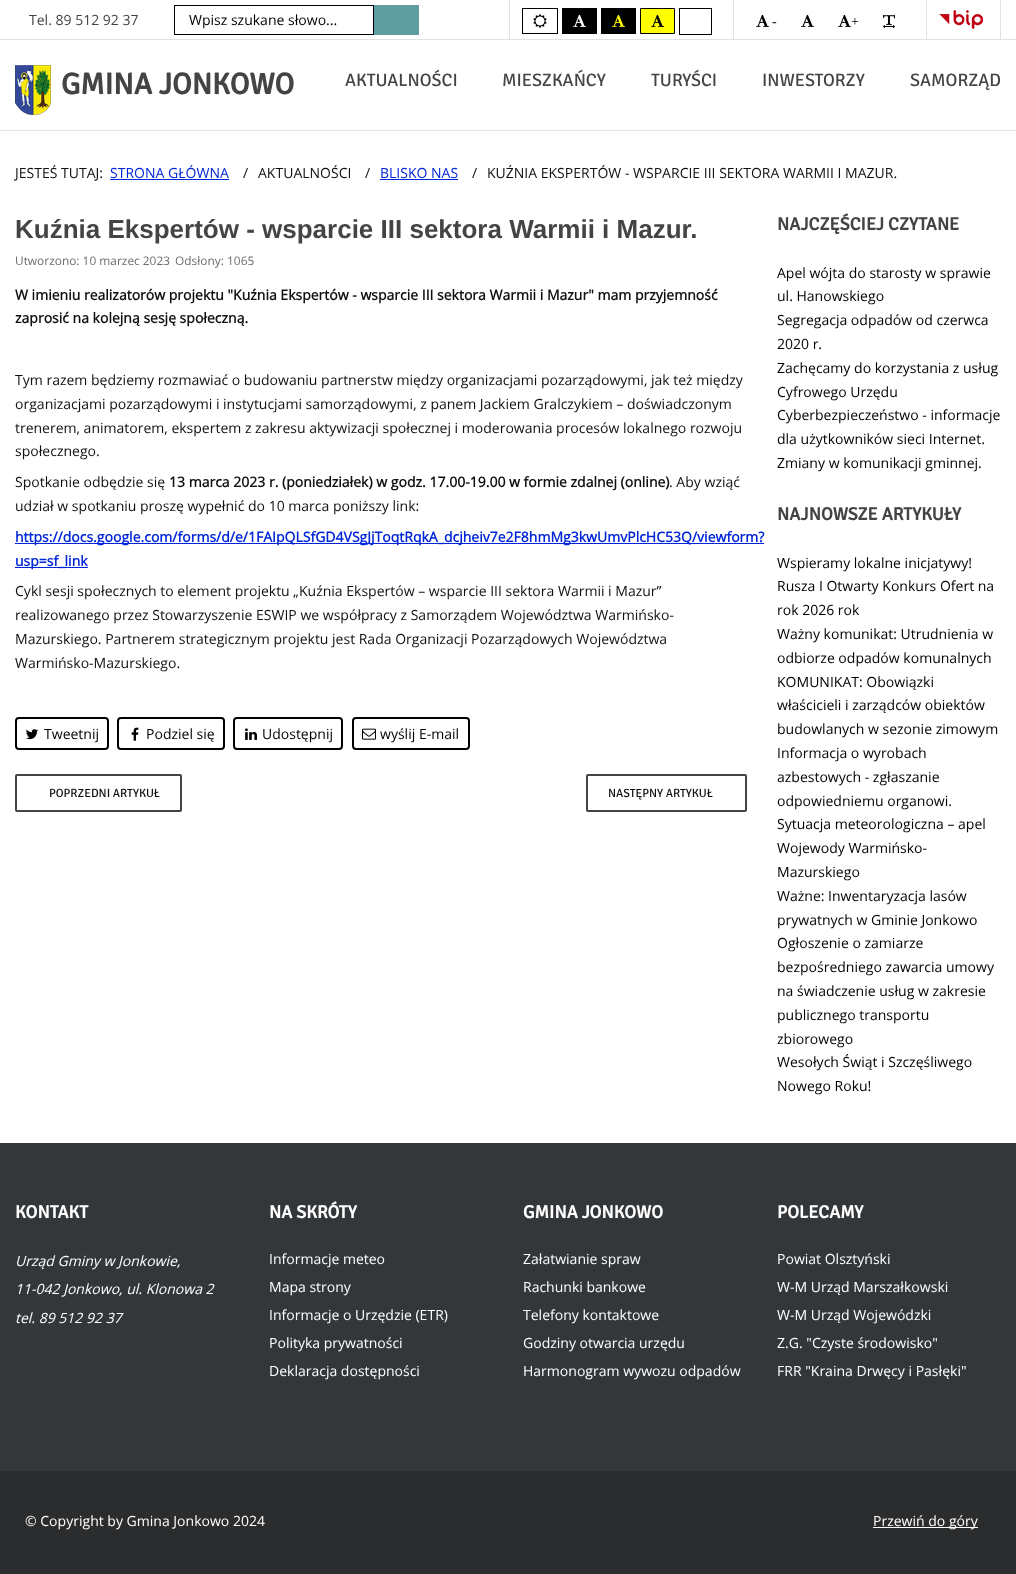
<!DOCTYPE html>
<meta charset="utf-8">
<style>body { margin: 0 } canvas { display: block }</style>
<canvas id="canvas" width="1016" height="1574"></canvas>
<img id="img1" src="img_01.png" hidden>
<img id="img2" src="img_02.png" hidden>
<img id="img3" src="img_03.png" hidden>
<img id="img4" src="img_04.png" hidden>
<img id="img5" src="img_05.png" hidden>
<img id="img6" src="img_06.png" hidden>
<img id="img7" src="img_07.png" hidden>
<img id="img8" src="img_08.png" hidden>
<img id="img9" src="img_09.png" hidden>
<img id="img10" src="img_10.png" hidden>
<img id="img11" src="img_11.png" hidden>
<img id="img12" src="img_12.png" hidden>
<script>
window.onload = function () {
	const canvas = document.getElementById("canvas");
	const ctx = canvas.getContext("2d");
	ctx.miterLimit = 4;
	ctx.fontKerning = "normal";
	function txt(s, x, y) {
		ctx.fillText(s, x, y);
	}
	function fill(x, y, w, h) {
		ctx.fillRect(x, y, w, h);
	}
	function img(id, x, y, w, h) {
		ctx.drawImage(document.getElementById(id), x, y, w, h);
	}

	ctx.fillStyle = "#2A2C2E";
	fill(0, 0, 1016, 1574);
	ctx.fillStyle = "#FFFFFF";
	fill(0, 0, 1016, 1143);
	ctx.fillStyle = "#E2E2E2";
	fill(0, 130, 1016, 1);
	fill(0, 39, 1016, 1);
	ctx.strokeStyle = "#000000";
	ctx.strokeRect(174.5, 5.5, 199, 29);
	ctx.fillStyle = "#5F9EA0";
	fill(374, 5, 45, 30);
	ctx.strokeStyle = "#E2E2E2";
	ctx.strokeRect(509.5, -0.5, 224, 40);
	ctx.strokeStyle = "#000000";
	ctx.strokeRect(522.5, 8.5, 35, 25);
	img("img1", 533, 14, 14, 14);
	ctx.fillStyle = "#000000";
	fill(562, 8, 35, 26);
	img("img2", 573, 15, 13, 12);
	fill(601, 8, 35, 26);
	img("img3", 612, 15, 13, 12);
	ctx.fillStyle = "#FFFF00";
	ctx.beginPath();
	ctx.rect(640.5, 8.5, 34, 25);
	ctx.fill();
	ctx.stroke();
	img("img4", 651, 15, 13, 12);
	ctx.strokeRect(679.5, 8.5, 32, 26);
	ctx.strokeStyle = "#E2E2E2";
	ctx.strokeRect(733.5, -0.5, 193, 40);
	img("img5", 756, 15, 13, 12);
	img("img5", 801, 15, 13, 12);
	img("img5", 838, 15, 13, 12);
	img("img6", 883, 15, 12, 13);
	ctx.strokeRect(926.5, -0.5, 74, 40);
	img("img7", 939, 10, 44, 19);
	img("img8", 15, 65, 36, 50);
	ctx.fillStyle = "#0025DA";
	fill(110, 179, 119, 1);
	fill(380, 179, 78, 1);
	fill(15, 543, 749, 1);
	fill(15, 567, 73, 1);
	ctx.beginPath();
	ctx.roundRect(16, 718, 92, 31, 3);
	ctx.strokeStyle = "#000000";
	ctx.lineWidth = 2;
	ctx.stroke();
	img("img9", 26, 729, 12, 11);
	ctx.beginPath();
	ctx.roundRect(118, 718, 106, 31, 3);
	ctx.stroke();
	img("img10", 131, 727, 8, 14);
	ctx.beginPath();
	ctx.roundRect(234, 718, 108, 31, 3);
	ctx.stroke();
	img("img11", 245, 728, 12, 12);
	ctx.beginPath();
	ctx.roundRect(353, 718, 116, 31, 3);
	ctx.stroke();
	img("img12", 362, 728, 14, 12);
	ctx.beginPath();
	ctx.roundRect(16, 775, 165, 36, 1);
	ctx.strokeStyle = "#444444";
	ctx.stroke();
	ctx.beginPath();
	ctx.roundRect(587, 775, 159, 36, 1);
	ctx.stroke();
	ctx.fillStyle = "#34373A";
	fill(0, 1143, 1016, 328);
	ctx.fillStyle = "#FFFFFF";
	fill(873, 1527, 105, 1);
	ctx.font = "14px Open Sans";
	ctx.fillStyle = "#444444";
	txt("Tel. 89 512 92 37", 29, 25);
	ctx.fillStyle = "#000000";
	txt("Wpisz szukane słowo...", 189, 25);
	ctx.font = "14px Liberation Serif";
	txt("-", 772, 26);
	txt("+", 851, 26);
	ctx.font = "bold 30px Signika";
	ctx.fillStyle = "#444444";
	txt("GMINA JONKOWO", 61, 94);
	ctx.font = "18px Signika";
	txt("AKTUALNOŚCI", 345, 86);
	txt("MIESZKAŃCY", 502, 86);
	txt("TURYŚCI", 651, 86);
	txt("INWESTORZY", 762, 86);
	txt("SAMORZĄD", 910, 86);
	ctx.font = "14px Open Sans";
	ctx.fillStyle = "#101010";
	txt("JESTEŚ TUTAJ:", 15, 178);
	ctx.fillStyle = "#0025DA";
	txt("STRONA GŁÓWNA", 110, 178);
	ctx.fillStyle = "#101010";
	txt("/", 243, 178);
	txt("AKTUALNOŚCI", 258, 178);
	txt("/", 365, 178);
	ctx.fillStyle = "#0025DA";
	txt("BLISKO NAS", 380, 178);
	ctx.fillStyle = "#101010";
	txt("/", 472, 178);
	txt("KUŹNIA EKSPERTÓW - WSPARCIE III SEKTORA WARMII I MAZUR.", 487, 178);
	ctx.font = "bold 26px Liberation Sans";
	ctx.fillStyle = "#444444";
	txt("Kuźnia Ekspertów - wsparcie III sektora Warmii i Mazur.", 15, 238);
	ctx.font = "11.9px Open Sans";
	ctx.fillStyle = "#6D6D6D";
	txt("Utworzono: 10 marzec 2023", 15, 265);
	txt("Odsłony: 1065", 175, 265);
	ctx.font = "bold 14px Open Sans";
	ctx.fillStyle = "#101010";
	txt("W imieniu realizatorów projektu \"Kuźnia Ekspertów - wsparcie III sektora Warmii i Mazur\" mam przyjemność", 15, 300);
	txt("zaprosić na kolejną sesję społeczną.", 15, 323);
	ctx.font = "14px Open Sans";
	txt("Tym razem będziemy rozmawiać o budowaniu partnerstw między organizacjami pozarządowymi, jak też między", 15, 385);
	txt("organizacjami pozarządowymi i instytucjami samorządowymi, z panem Jackiem Gralczykiem – doświadczonym", 15, 409);
	txt("trenerem, animatorem, ekspertem z zakresu aktywizacji społecznej i moderowania procesów lokalnego rozwoju", 15, 433);
	txt("społecznego.", 15, 456);
	txt("Spotkanie odbędzie się", 15, 487);
	ctx.font = "bold 14px Open Sans";
	txt("13 marca 2023 r. (poniedziałek) w godz. 17.00-19.00 w formie zdalnej (online)", 169, 487);
	ctx.font = "14px Open Sans";
	txt(". Aby wziąć", 669, 487);
	txt("udział w spotkaniu proszę wypełnić do 10 marca poniższy link:", 15, 511);
	ctx.font = "bold 14px Open Sans";
	ctx.fillStyle = "#0025DA";
	txt("https://docs.google.com/forms/d/e/1FAIpQLSfGD4VSgJjToqtRqkA_dcjheiv7e2F8hmMg3kwUmvPlcHC53Q/viewform?", 15, 542);
	txt("usp=sf_link", 15, 566);
	ctx.font = "14px Open Sans";
	ctx.fillStyle = "#101010";
	txt("Cykl sesji społecznych to element projektu „Kuźnia Ekspertów – wsparcie III sektora Warmii i Mazur”", 15, 596);
	txt("realizowanego przez Stowarzyszenie ESWIP we współpracy z Samorządem Województwa Warmińsko-", 15, 620);
	txt("Mazurskiego. Partnerem strategicznym projektu jest Rada Organizacji Pozarządowych Województwa", 15, 644);
	txt("Warmińsko-Mazurskiego.", 15, 668);
	ctx.fillStyle = "#000000";
	txt("Tweetnij", 44, 739);
	txt("Podziel się", 146, 739);
	txt("Udostępnij", 262, 739);
	txt("wyślij E-mail", 380, 739);
	ctx.font = "11.9px Signika";
	ctx.fillStyle = "#101010";
	txt("POPRZEDNI ARTYKUŁ", 49, 797);
	txt("NASTĘPNY ARTYKUŁ", 608, 797);
	ctx.font = "bold 18px Signika";
	ctx.fillStyle = "#444444";
	txt("NAJCZĘŚCIEJ CZYTANE", 777, 230);
	ctx.font = "14px Open Sans";
	ctx.fillStyle = "#000000";
	txt("Apel wójta do starosty w sprawie", 777, 278);
	txt("ul. Hanowskiego", 777, 301);
	txt("Segregacja odpadów od czerwca", 777, 325);
	txt("2020 r.", 777, 349);
	txt("Zachęcamy do korzystania z usług", 777, 373);
	txt("Cyfrowego Urzędu", 777, 397);
	txt("Cyberbezpieczeństwo - informacje", 777, 420);
	txt("dla użytkowników sieci Internet.", 777, 444);
	txt("Zmiany w komunikacji gminnej.", 777, 468);
	ctx.font = "bold 18px Signika";
	ctx.fillStyle = "#444444";
	txt("NAJNOWSZE ARTYKUŁY", 777, 520);
	ctx.font = "14px Open Sans";
	ctx.fillStyle = "#000000";
	txt("Wspieramy lokalne inicjatywy!", 777, 568);
	txt("Rusza I Otwarty Konkurs Ofert na", 777, 591);
	txt("rok 2026 rok", 777, 615);
	txt("Ważny komunikat: Utrudnienia w", 777, 639);
	txt("odbiorze odpadów komunalnych", 777, 663);
	txt("KOMUNIKAT: Obowiązki", 777, 687);
	txt("właścicieli i zarządców obiektów", 777, 710);
	txt("budowlanych w sezonie zimowym", 777, 734);
	txt("Informacja o wyrobach", 777, 758);
	txt("azbestowych - zgłaszanie", 777, 782);
	txt("odpowiedniemu organowi.", 777, 806);
	txt("Sytuacja meteorologiczna – apel", 777, 829);
	txt("Wojewody Warmińsko-", 777, 853);
	txt("Mazurskiego", 777, 877);
	txt("Ważne: Inwentaryzacja lasów", 777, 901);
	txt("prywatnych w Gminie Jonkowo", 777, 925);
	txt("Ogłoszenie o zamiarze", 777, 948);
	txt("bezpośredniego zawarcia umowy", 777, 972);
	txt("na świadczenie usług w zakresie", 777, 996);
	txt("publicznego transportu", 777, 1020);
	txt("zbiorowego", 777, 1044);
	txt("Wesołych Świąt i Szczęśliwego", 777, 1067);
	txt("Nowego Roku!", 777, 1091);
	ctx.font = "bold 18px Signika";
	ctx.fillStyle = "#FFFFFF";
	txt("KONTAKT", 15, 1218);
	ctx.font = "italic 14px Open Sans";
	txt("Urząd Gminy w Jonkowie,", 15, 1266);
	txt("11-042 Jonkowo, ul. Klonowa 2", 15, 1294);
	txt("tel. 89 512 92 37", 15, 1323);
	ctx.font = "bold 18px Signika";
	txt("NA SKRÓTY", 269, 1218);
	ctx.font = "14px Open Sans";
	txt("Informacje meteo", 269, 1264);
	txt("Mapa strony", 269, 1292);
	txt("Informacje o Urzędzie (ETR)", 269, 1320);
	txt("Polityka prywatności", 269, 1348);
	txt("Deklaracja dostępności", 269, 1376);
	ctx.font = "bold 18px Signika";
	txt("GMINA JONKOWO", 523, 1218);
	ctx.font = "14px Open Sans";
	txt("Załatwianie spraw", 523, 1264);
	txt("Rachunki bankowe", 523, 1292);
	txt("Telefony kontaktowe", 523, 1320);
	txt("Godziny otwarcia urzędu", 523, 1348);
	txt("Harmonogram wywozu odpadów", 523, 1376);
	ctx.font = "bold 18px Signika";
	txt("POLECAMY", 777, 1218);
	ctx.font = "14px Open Sans";
	txt("Powiat Olsztyński", 777, 1264);
	txt("W-M Urząd Marszałkowski", 777, 1292);
	txt("W-M Urząd Wojewódzki", 777, 1320);
	txt("Z.G. \"Czyste środowisko\"", 777, 1348);
	txt("FRR \"Kraina Drwęcy i Pasłęki\"", 777, 1376);
	txt("© Copyright by Gmina Jonkowo 2024", 25, 1526);
	txt("Przewiń do góry", 873, 1526);
};
</script>
